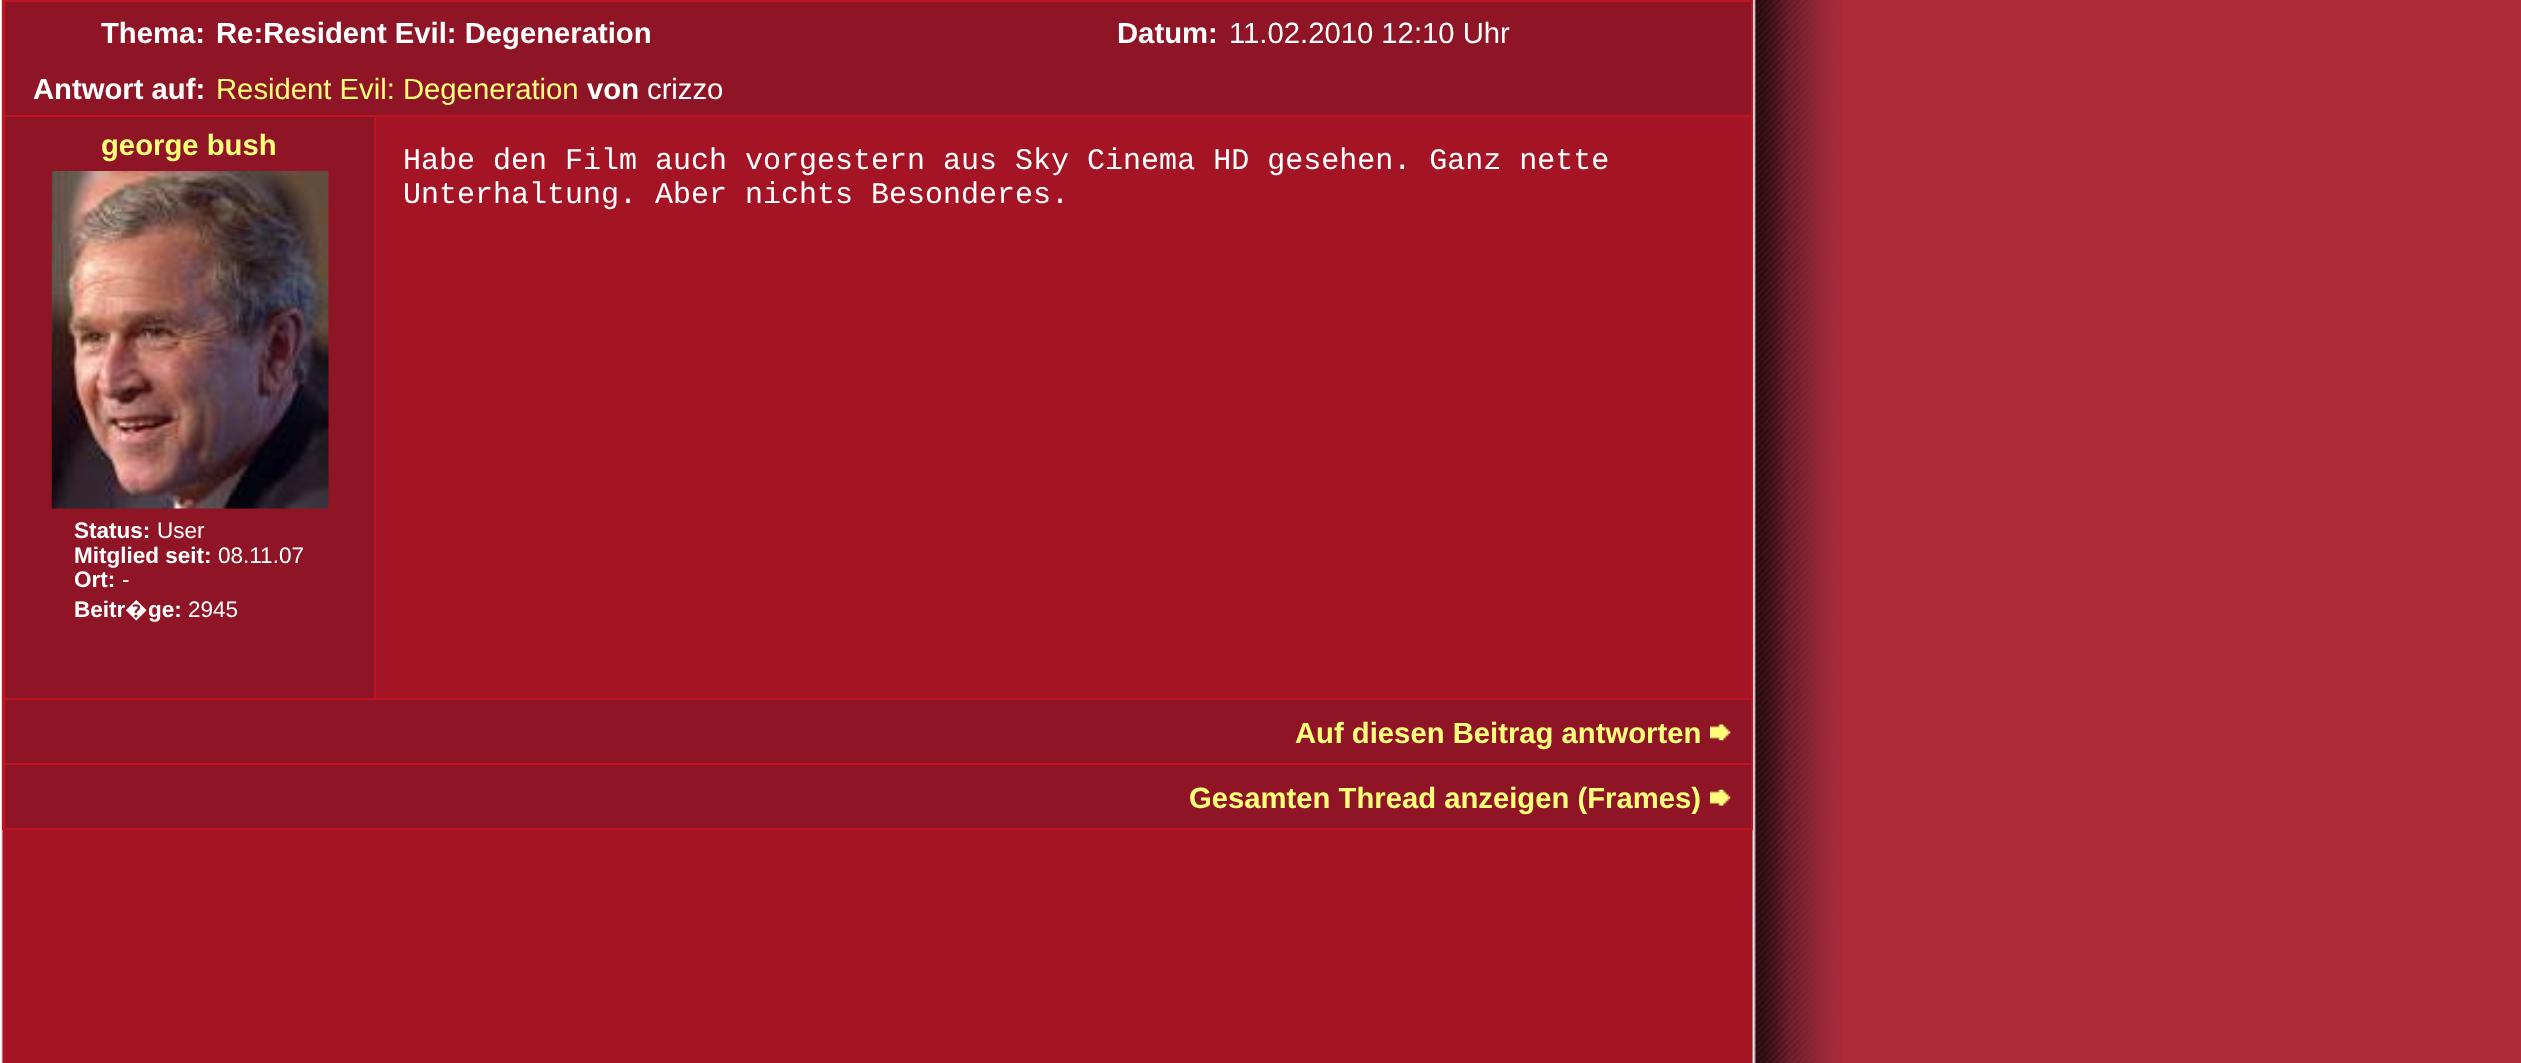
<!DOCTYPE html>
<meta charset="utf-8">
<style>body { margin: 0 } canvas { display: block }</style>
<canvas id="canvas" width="2521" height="1063"></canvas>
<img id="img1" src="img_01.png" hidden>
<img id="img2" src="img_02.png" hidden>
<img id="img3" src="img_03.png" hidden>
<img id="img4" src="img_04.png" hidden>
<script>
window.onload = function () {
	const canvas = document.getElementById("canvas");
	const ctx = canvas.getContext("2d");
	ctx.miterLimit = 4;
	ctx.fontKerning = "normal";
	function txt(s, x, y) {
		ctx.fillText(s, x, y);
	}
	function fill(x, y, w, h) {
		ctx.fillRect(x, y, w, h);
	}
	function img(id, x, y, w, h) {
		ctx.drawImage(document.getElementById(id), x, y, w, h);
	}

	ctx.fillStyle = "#AD2C39";
	fill(0, 0, 2521, 1063);
	img("img1", 0, 0, 1843, 1063);
	ctx.fillStyle = "#C01425";
	fill(2, 0, 1751, 830);
	ctx.fillStyle = "#8F1425";
	fill(5, 2, 1746, 113);
	ctx.fillStyle = "#A51425";
	fill(376, 117, 1375, 581);
	ctx.fillStyle = "#8F1425";
	fill(5, 117, 369, 581);
	img("img2", 51, 171, 278, 338);
	fill(5, 700, 1746, 63);
	img("img3", 1710, 724, 21, 17);
	fill(5, 765, 1746, 63);
	img("img4", 1710, 789, 21, 17);
	ctx.font = "bold 29.25px Liberation Sans";
	ctx.fillStyle = "#FFFFFF";
	txt("Thema:", 101, 43);
	txt("Re:Resident Evil: Degeneration", 216, 43);
	txt("Datum:", 1117, 43);
	ctx.font = "29.25px Liberation Sans";
	txt("11.02.2010 12:10 Uhr", 1229, 43);
	ctx.font = "bold 29.25px Liberation Sans";
	txt("Antwort auf:", 33, 99);
	ctx.font = "29.25px Liberation Sans";
	ctx.fillStyle = "#FFFF7C";
	txt("Resident Evil: Degeneration", 216, 99);
	ctx.font = "bold 29.25px Liberation Sans";
	ctx.fillStyle = "#FFFFFF";
	txt("von", 587, 99);
	ctx.font = "29.25px Liberation Sans";
	txt("crizzo", 647, 99);
	ctx.font = "bold 29.25px Liberation Sans";
	ctx.fillStyle = "#FFFF7C";
	txt("george bush", 101, 155);
	ctx.font = "bold 22.5px Liberation Sans";
	ctx.fillStyle = "#FFFFFF";
	txt("Status:", 74, 538);
	ctx.font = "22.5px Liberation Sans";
	txt("User", 157, 538);
	ctx.font = "bold 22.5px Liberation Sans";
	txt("Mitglied seit:", 74, 563);
	ctx.font = "22.5px Liberation Sans";
	txt("08.11.07", 218, 563);
	ctx.font = "bold 22.5px Liberation Sans";
	txt("Ort:", 74, 587);
	ctx.font = "22.5px Liberation Sans";
	txt("-", 122, 587);
	ctx.font = "bold 22.5px Liberation Sans";
	txt("Beitr", 74, 617);
	ctx.font = "bold 22.5px Noto Sans";
	txt("�", 125, 617);
	ctx.font = "bold 22.5px Liberation Sans";
	txt("ge:", 148, 617);
	ctx.font = "22.5px Liberation Sans";
	txt("2945", 188, 617);
	ctx.font = "30px Liberation Mono";
	txt("Habe den Film auch vorgestern aus Sky Cinema HD gesehen. Ganz nette", 403, 169);
	txt("Unterhaltung. Aber nichts Besonderes.", 403, 203);
	ctx.font = "bold 29.25px Liberation Sans";
	ctx.fillStyle = "#FFFF7C";
	txt("Auf diesen Beitrag antworten", 1295, 743);
	txt("Gesamten Thread anzeigen (Frames)", 1189, 808);
};
</script>
